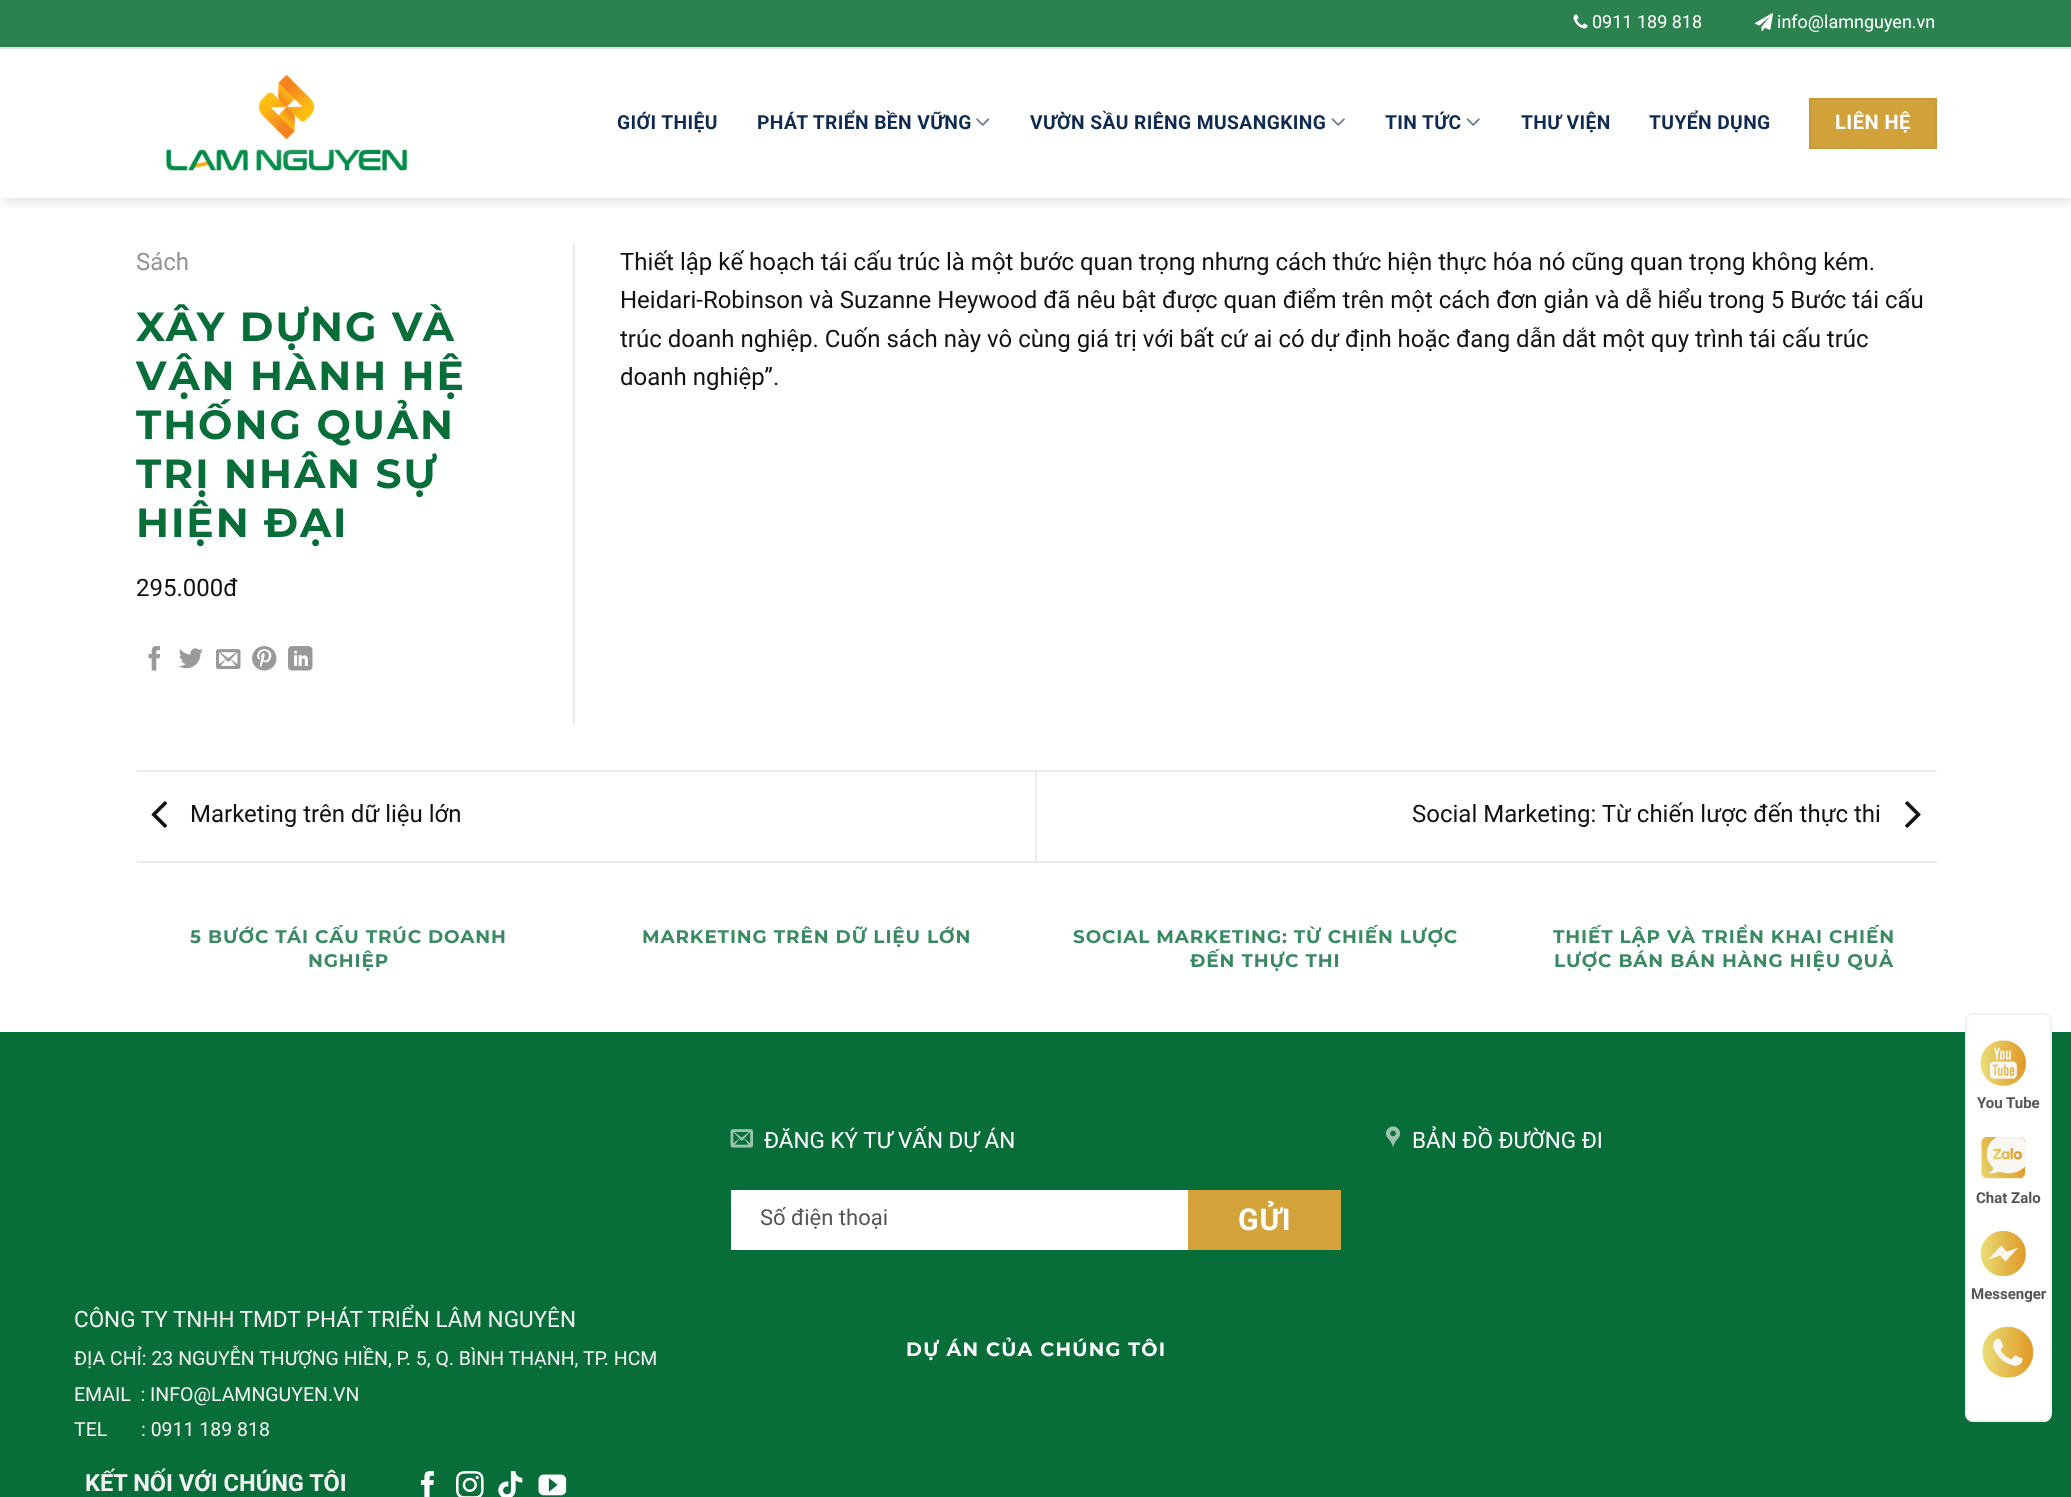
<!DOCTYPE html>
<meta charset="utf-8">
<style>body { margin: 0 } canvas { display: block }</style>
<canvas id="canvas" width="2071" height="1497"></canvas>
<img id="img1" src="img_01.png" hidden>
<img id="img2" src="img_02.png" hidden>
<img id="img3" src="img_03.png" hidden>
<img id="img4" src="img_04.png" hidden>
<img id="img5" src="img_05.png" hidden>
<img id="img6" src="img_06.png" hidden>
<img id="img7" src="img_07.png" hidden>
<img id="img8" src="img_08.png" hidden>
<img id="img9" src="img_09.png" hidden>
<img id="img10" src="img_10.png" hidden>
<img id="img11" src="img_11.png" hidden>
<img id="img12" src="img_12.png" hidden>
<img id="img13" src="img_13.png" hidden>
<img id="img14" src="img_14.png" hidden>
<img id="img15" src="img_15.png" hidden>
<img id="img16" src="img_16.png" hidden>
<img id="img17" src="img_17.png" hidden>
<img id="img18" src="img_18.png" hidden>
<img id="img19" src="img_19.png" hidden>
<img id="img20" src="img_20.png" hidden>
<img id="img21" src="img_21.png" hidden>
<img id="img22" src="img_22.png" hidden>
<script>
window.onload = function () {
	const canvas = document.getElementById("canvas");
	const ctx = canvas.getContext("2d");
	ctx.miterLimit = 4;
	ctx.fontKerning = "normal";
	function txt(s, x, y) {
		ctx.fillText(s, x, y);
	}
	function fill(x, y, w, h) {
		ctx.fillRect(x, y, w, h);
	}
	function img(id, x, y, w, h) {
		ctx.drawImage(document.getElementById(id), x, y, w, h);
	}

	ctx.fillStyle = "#FFFFFF";
	fill(0, 0, 2071, 1497);
	ctx.save();
	ctx.beginPath();
	ctx.rect(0, 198, 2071, 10);
	ctx.clip();
	ctx.fillStyle = "rgba(0, 0, 0, 0.15)";
	ctx.filter = "blur(7.5px)";
	ctx.beginPath();
	ctx.rect(2, 2, 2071, 198);
	ctx.fill();
	ctx.filter = "none";
	ctx.restore();
	ctx.fillStyle = "#2C824F";
	fill(0, 0, 2071, 47);
	ctx.fillStyle = "#E1E1E1";
	fill(0, 47, 2071, 2);
	img("img1", 1573, 14, 15, 15);
	img("img2", 1755, 13, 18, 18);
	img("img3", 165, 74, 243, 97);
	img("img4", 976, 118, 14, 8);
	img("img5", 1331, 118, 14, 8);
	img("img5", 1466, 118, 14, 8);
	ctx.fillStyle = "#D2A23A";
	ctx.beginPath();
	ctx.rect(1810, 99, 126, 49);
	ctx.fill();
	ctx.strokeStyle = "#C89A37";
	ctx.lineWidth = 2;
	ctx.stroke();
	ctx.fillStyle = "#ECECEC";
	fill(573, 243, 2, 482);
	img("img6", 148, 646, 13, 25);
	img("img7", 178, 648, 25, 21);
	img("img8", 216, 649, 25, 20);
	img("img9", 252, 646, 25, 25);
	img("img10", 288, 646, 25, 25);
	fill(137, 770, 1800, 2);
	fill(137, 861, 1800, 2);
	img("img11", 151, 801, 17, 27);
	fill(1035, 771, 2, 90);
	img("img12", 1905, 801, 16, 27);
	ctx.fillStyle = "#076D39";
	fill(0, 1032, 2071, 465);
	img("img13", 730, 1129, 23, 19);
	ctx.fillStyle = "#FFFFFF";
	fill(731, 1190, 457, 60);
	ctx.fillStyle = "#D3A23B";
	fill(1188, 1190, 153, 60);
	img("img14", 1386, 1126, 15, 23);
	img("img15", 420, 1471, 14, 26);
	img("img16", 456, 1471, 28, 26);
	img("img17", 498, 1471, 25, 26);
	img("img18", 538, 1474, 29, 22);
	ctx.fillStyle = "#FFFFFF";
	ctx.beginPath();
	ctx.roundRect(1966, 1014, 85, 407, 7);
	ctx.fill();
	ctx.strokeStyle = "#F2F2F2";
	ctx.stroke();
	img("img19", 1980, 1040, 46, 47);
	img("img20", 1981, 1137, 45, 42);
	img("img21", 1980, 1231, 46, 45);
	img("img22", 1982, 1326, 52, 52);
	ctx.font = "18px Roboto";
	txt("0911 189 818", 1592, 28);
	txt("info@lamnguyen.vn", 1777, 28);
	ctx.letterSpacing = "0.4px";
	ctx.font = "bold 19.25px Roboto";
	ctx.fillStyle = "#0F2A51";
	txt("GIỚI THIỆU", 617, 129);
	txt("PHÁT TRIỂN BỀN VỮNG", 757, 129);
	txt("VƯỜN SẦU RIÊNG MUSANGKING", 1030, 129);
	txt("TIN TỨC", 1385, 129);
	txt("THƯ VIỆN", 1521, 129);
	txt("TUYỂN DỤNG", 1649, 129);
	ctx.letterSpacing = "0.5px";
	ctx.font = "bold 20px Roboto";
	ctx.fillStyle = "#FFFFFF";
	txt("LIÊN HỆ", 1835, 129);
	ctx.letterSpacing = "0px";
	ctx.font = "24px Roboto";
	ctx.fillStyle = "#949494";
	txt("Sách", 136, 270);
	ctx.letterSpacing = "2px";
	ctx.font = "bold 40.75px Montserrat";
	ctx.fillStyle = "#076D39";
	txt("XÂY DỰNG VÀ", 136, 341);
	txt("VẬN HÀNH HỆ", 136, 390);
	txt("THỐNG QUẢN", 136, 439);
	txt("TRỊ NHÂN SỰ", 136, 488);
	txt("HIỆN ĐẠI", 136, 537);
	ctx.letterSpacing = "0px";
	ctx.font = "24px Roboto";
	ctx.fillStyle = "#111111";
	txt("295.000đ", 136, 596);
	txt("Thiết lập kế hoạch tái cấu trúc là một bước quan trọng nhưng cách thức hiện thực hóa nó cũng quan trọng không kém.", 620, 270);
	txt("Heidari-Robinson và Suzanne Heywood đã nêu bật được quan điểm trên một cách đơn giản và dễ hiểu trong 5 Bước tái cấu", 620, 308);
	txt("trúc doanh nghiệp. Cuốn sách này vô cùng giá trị với bất cứ ai có dự định hoặc đang dẫn dắt một quy trình tái cấu trúc", 620, 347);
	txt("doanh nghiệp”.", 620, 385);
	txt("Marketing trên dữ liệu lớn", 190, 822);
	txt("Social Marketing: Từ chiến lược đến thực thi", 1412, 822);
	ctx.letterSpacing = "0.9px";
	ctx.font = "bold 18.4px Montserrat";
	ctx.fillStyle = "#398A61";
	txt("5 BƯỚC TÁI CẤU TRÚC DOANH", 190, 943);
	txt("NGHIỆP", 308, 967);
	txt("MARKETING TRÊN DỮ LIỆU LỚN", 642, 943);
	txt("SOCIAL MARKETING: TỪ CHIẾN LƯỢC", 1073, 943);
	txt("ĐẾN THỰC THI", 1190, 967);
	txt("THIẾT LẬP VÀ TRIỂN KHAI CHIẾN", 1553, 943);
	txt("LƯỢC BÁN BÁN HÀNG HIỆU QUẢ", 1554, 967);
	ctx.letterSpacing = "0px";
	ctx.font = "22.5px Roboto";
	ctx.fillStyle = "#FFFFFF";
	txt("ĐĂNG KÝ TƯ VẤN DỰ ÁN", 764, 1148);
	ctx.font = "22px Roboto";
	ctx.fillStyle = "#555555";
	txt("Số điện thoại", 760, 1225);
	ctx.letterSpacing = "1px";
	ctx.font = "bold 30px Roboto";
	ctx.fillStyle = "#FFFFFF";
	txt("GỬI", 1238, 1230);
	ctx.letterSpacing = "1.25px";
	ctx.font = "bold 19.25px Montserrat";
	txt("DỰ ÁN CỦA CHÚNG TÔI", 906, 1356);
	ctx.letterSpacing = "0px";
	ctx.font = "22.5px Roboto";
	txt("BẢN ĐỒ ĐƯỜNG ĐI", 1412, 1148);
	ctx.fillStyle = "#F1F1F1";
	txt("CÔNG TY TNHH TMDT PHÁT TRIỂN LÂM NGUYÊN", 74, 1327);
	ctx.font = "19.5px Roboto";
	txt("ĐỊA CHỈ: 23 NGUYỄN THƯỢNG HIỀN, P. 5, Q. BÌNH THẠNH, TP. HCM", 74, 1365);
	txt("EMAIL  : INFO@LAMNGUYEN.VN", 74, 1401);
	txt("TEL       : 0911 189 818", 74, 1436);
	ctx.font = "bold 23.6px Roboto";
	txt("KẾT NỐI VỚI CHÚNG TÔI", 85, 1491);
	ctx.font = "bold 15px Roboto";
	ctx.fillStyle = "#555555";
	txt("You Tube", 1977, 1108);
	txt("Chat Zalo", 1976, 1203);
	txt("Messenger", 1971, 1299);
};
</script>
